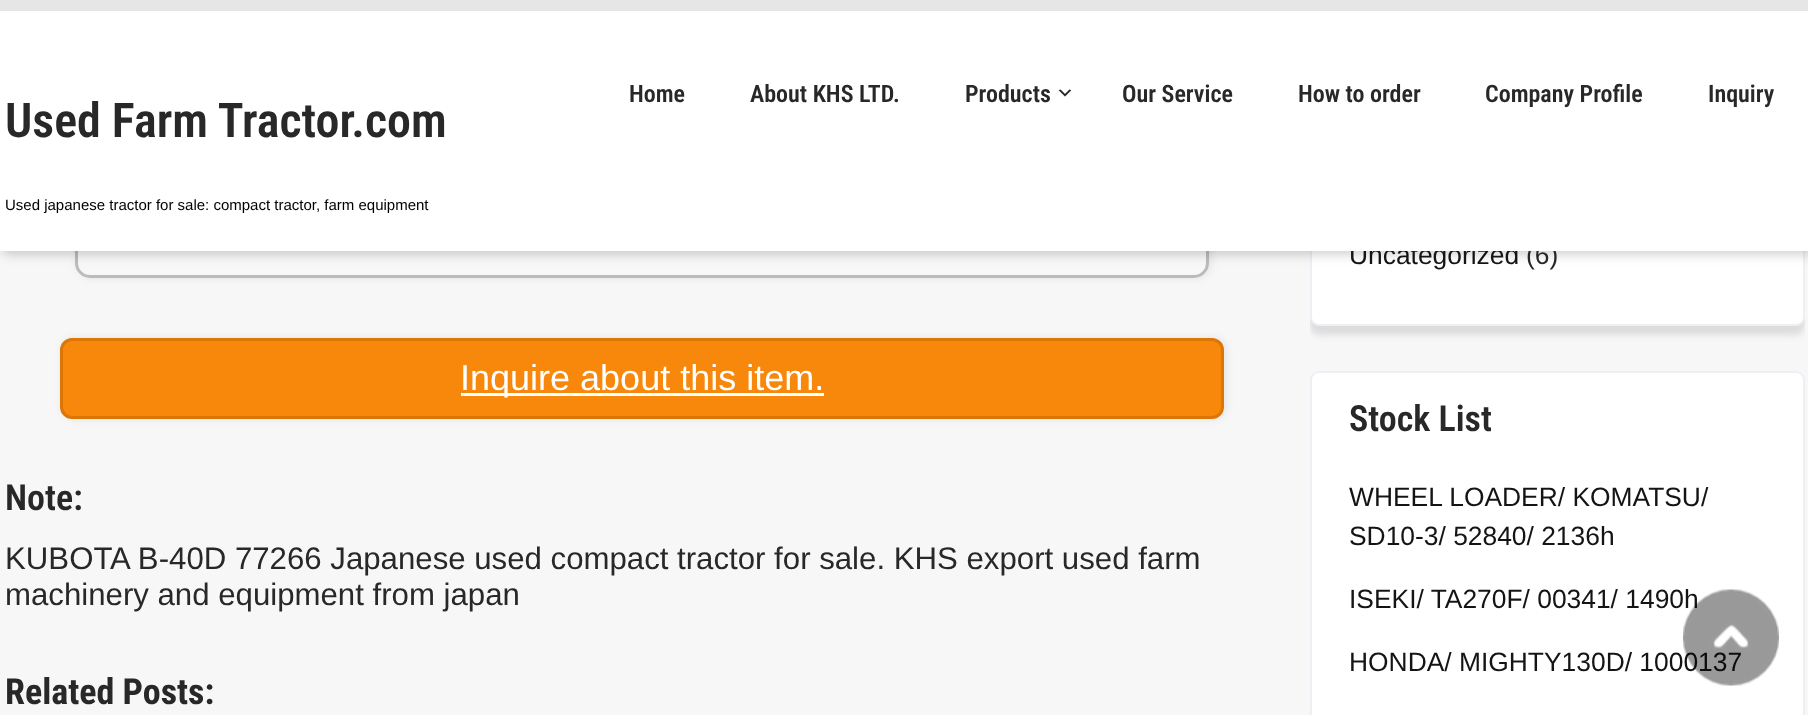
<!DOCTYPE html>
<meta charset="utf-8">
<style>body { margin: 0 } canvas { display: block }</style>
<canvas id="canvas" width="1808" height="715"></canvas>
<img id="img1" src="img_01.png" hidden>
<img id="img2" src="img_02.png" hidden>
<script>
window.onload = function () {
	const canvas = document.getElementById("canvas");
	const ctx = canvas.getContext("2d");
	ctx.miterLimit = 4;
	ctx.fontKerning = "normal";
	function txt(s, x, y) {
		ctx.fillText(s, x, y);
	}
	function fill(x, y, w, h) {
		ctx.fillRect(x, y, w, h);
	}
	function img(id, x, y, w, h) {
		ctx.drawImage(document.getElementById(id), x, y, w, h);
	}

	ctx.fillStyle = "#F7F7F7";
	fill(0, 0, 1808, 715);
	ctx.save();
	ctx.beginPath();
	ctx.moveTo(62, 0);
	ctx.lineTo(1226, 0);
	ctx.lineTo(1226, 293);
	ctx.lineTo(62, 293);
	ctx.closePath();
	ctx.moveTo(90, -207);
	ctx.lineTo(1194, -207);
	ctx.bezierCurveTo(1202.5, -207, 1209, -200.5, 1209, -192);
	ctx.lineTo(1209, 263);
	ctx.bezierCurveTo(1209, 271.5, 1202.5, 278, 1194, 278);
	ctx.lineTo(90, 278);
	ctx.bezierCurveTo(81.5, 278, 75, 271.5, 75, 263);
	ctx.lineTo(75, -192);
	ctx.bezierCurveTo(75, -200.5, 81.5, -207, 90, -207);
	ctx.closePath();
	ctx.clip("evenodd");
	ctx.fillStyle = "rgba(0, 0, 0, 0.08)";
	ctx.filter = "blur(4.5px)";
	ctx.beginPath();
	ctx.roundRect(77, -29, 1134, 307, 15);
	ctx.fill();
	ctx.filter = "none";
	ctx.restore();
	ctx.beginPath();
	ctx.roundRect(76.5, -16.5, 1131, 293, 13.5);
	ctx.strokeStyle = "rgba(127, 127, 127, 0.5)";
	ctx.lineWidth = 3;
	ctx.stroke();
	ctx.save();
	ctx.beginPath();
	ctx.rect(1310, 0, 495, 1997);
	ctx.clip();
	ctx.fillStyle = "#DCDCDC";
	ctx.filter = "blur(3px)";
	ctx.beginPath();
	ctx.roundRect(1310, -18, 495, 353, 9);
	ctx.fill();
	ctx.filter = "none";
	ctx.restore();
	ctx.fillStyle = "#FFFFFF";
	ctx.beginPath();
	ctx.roundRect(1311, -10, 493, 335, 8);
	ctx.fill();
	ctx.strokeStyle = "#EEEFF5";
	ctx.lineWidth = 2;
	ctx.stroke();
	ctx.fillStyle = "rgba(0, 0, 0, 0.2)";
	ctx.filter = "blur(6px)";
	ctx.beginPath();
	ctx.rect(3, 3, 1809, 251);
	ctx.fill();
	ctx.filter = "none";
	ctx.fillStyle = "#E6E6E6";
	fill(0, 0, 1808, 11);
	ctx.fillStyle = "rgba(0, 0, 0, 0.08)";
	ctx.filter = "blur(4.5px)";
	ctx.beginPath();
	ctx.roundRect(62, 338, 1164, 81, 12);
	ctx.fill();
	ctx.filter = "none";
	ctx.fillStyle = "#F7880B";
	ctx.beginPath();
	ctx.roundRect(61.5, 339.5, 1161, 78, 10.5);
	ctx.fill();
	ctx.strokeStyle = "#DC7707";
	ctx.lineWidth = 3;
	ctx.stroke();
	ctx.fillStyle = "#FFFFFF";
	fill(461, 393, 363, 3);
	ctx.save();
	ctx.beginPath();
	ctx.rect(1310, 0, 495, 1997);
	ctx.clip();
	ctx.fillStyle = "#DCDCDC";
	ctx.filter = "blur(3px)";
	ctx.beginPath();
	ctx.roundRect(1310, 380, 495, 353, 9);
	ctx.fill();
	ctx.filter = "none";
	ctx.restore();
	ctx.beginPath();
	ctx.roundRect(1311, 372, 493, 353, 8);
	ctx.fill();
	ctx.strokeStyle = "#EEEFF5";
	ctx.lineWidth = 2;
	ctx.stroke();
	ctx.font = "36px Liberation Sans";
	txt("Inquire about this item.", 460, 390);
	ctx.font = "600 36px Roboto Condensed";
	ctx.fillStyle = "#282828";
	txt("Note:", 5, 510);
	ctx.font = "31.2px Liberation Sans";
	txt("KUBOTA B-40D 77266 Japanese used compact tractor for sale. KHS export used farm", 5, 569);
	txt("machinery and equipment from japan", 5, 605);
	ctx.font = "bold 36px Roboto Condensed";
	txt("Related Posts:", 5, 704);
	ctx.font = "26.4px Liberation Sans";
	ctx.fillStyle = "#141414";
	txt("Uncategorized", 1349, 264);
	ctx.fillStyle = "#282828";
	txt("(6)", 1526, 264);
	ctx.fillStyle = "#FFFFFF";
	fill(0, 11, 1808, 240);
	ctx.font = "15px Liberation Sans";
	ctx.fillStyle = "#000000";
	txt("Used japanese tractor for sale: compact tractor, farm equipment", 5, 210);
	ctx.font = "600 48px Roboto Condensed";
	ctx.fillStyle = "#282828";
	txt("Used Farm Tractor.com", 5, 137);
	ctx.font = "600 24px Roboto Condensed";
	txt("Inquiry", 1708, 102);
	txt("Company Profile", 1485, 102);
	txt("How to order", 1298, 102);
	txt("Our Service", 1122, 102);
	img("img1", 1058, 89, 14, 8);
	txt("Products", 965, 102);
	txt("About KHS LTD.", 750, 102);
	txt("Home", 629, 102);
	ctx.font = "600 36px Roboto Condensed";
	txt("Stock List", 1349, 431);
	ctx.font = "26.4px Liberation Sans";
	ctx.fillStyle = "#141414";
	txt("WHEEL LOADER/ KOMATSU/", 1349, 506);
	txt("SD10-3/ 52840/ 2136h", 1349, 545);
	txt("ISEKI/ TA270F/ 00341/ 1490h", 1349, 608);
	txt("HONDA/ MIGHTY130D/ 1000137", 1349, 671);
	img("img2", 1683, 589, 96, 97);
};
</script>
